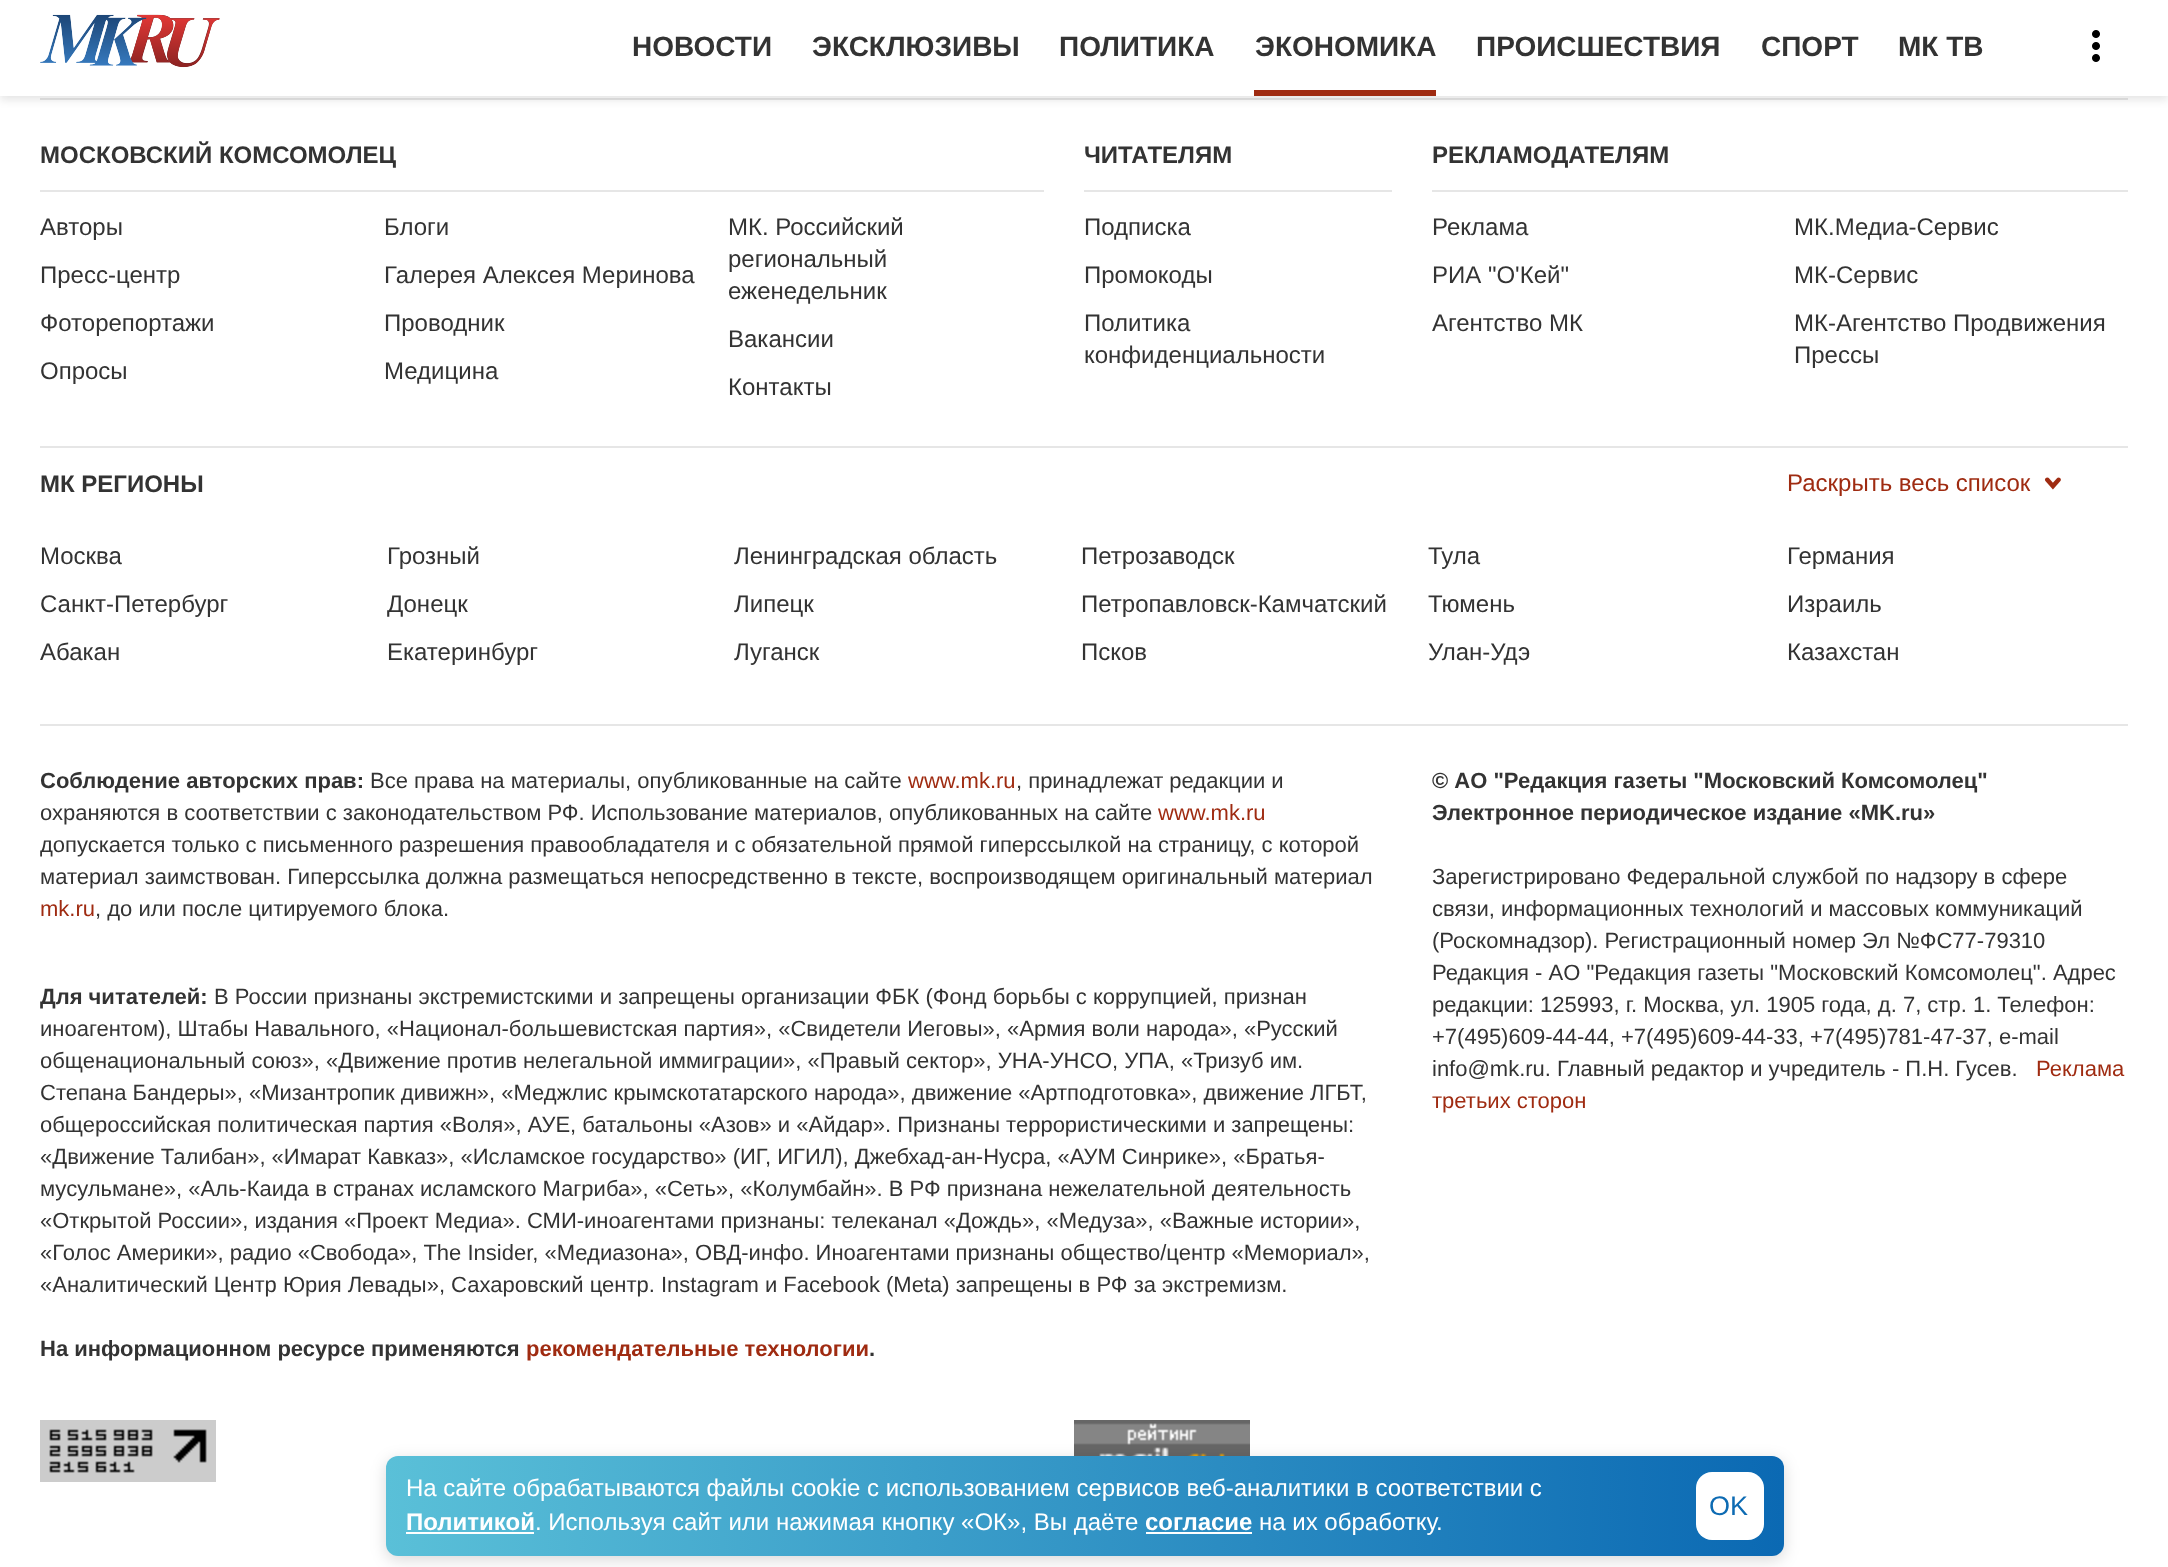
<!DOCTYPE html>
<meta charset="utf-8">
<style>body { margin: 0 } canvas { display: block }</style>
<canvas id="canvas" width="2168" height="1567"></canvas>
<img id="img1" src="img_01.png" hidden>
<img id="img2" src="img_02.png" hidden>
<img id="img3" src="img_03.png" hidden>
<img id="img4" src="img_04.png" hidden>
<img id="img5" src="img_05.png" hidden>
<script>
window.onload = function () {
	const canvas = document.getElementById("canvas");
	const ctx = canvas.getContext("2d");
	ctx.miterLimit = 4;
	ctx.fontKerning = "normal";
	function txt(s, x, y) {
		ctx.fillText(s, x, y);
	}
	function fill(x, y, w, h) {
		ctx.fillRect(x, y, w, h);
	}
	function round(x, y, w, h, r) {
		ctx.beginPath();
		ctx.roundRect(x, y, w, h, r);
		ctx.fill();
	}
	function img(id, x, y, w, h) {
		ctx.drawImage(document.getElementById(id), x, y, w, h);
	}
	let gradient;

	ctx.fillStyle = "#FFFFFF";
	fill(0, 0, 2168, 1567);
	ctx.fillStyle = "#E6E6E6";
	fill(40, 98, 2088, 2);
	ctx.fillStyle = "rgba(0, 0, 0, 0.1)";
	ctx.filter = "blur(4px)";
	ctx.beginPath();
	ctx.rect(0, 4, 2168, 96);
	ctx.fill();
	ctx.filter = "none";
	ctx.fillStyle = "#FFFFFF";
	fill(0, 0, 2168, 96);
	img("img1", 40, 14, 180, 54);
	ctx.fillStyle = "#9F2B11";
	fill(1254, 90, 182, 6);
	img("img2", 2092, 30, 8, 32);
	ctx.fillStyle = "#E6E6E6";
	fill(40, 190, 1004, 2);
	fill(1084, 190, 308, 2);
	fill(1432, 190, 696, 2);
	fill(40, 724, 2088, 2);
	fill(40, 446, 2088, 2);
	img("img3", 2044, 477, 17, 13);
	img("img4", 40, 1420, 176, 62);
	img("img5", 1074, 1420, 176, 36);
	ctx.fillStyle = "rgba(0, 0, 0, 0.15)";
	ctx.filter = "blur(8px)";
	ctx.beginPath();
	ctx.roundRect(386, 1460, 1398, 100, 12);
	ctx.fill();
	ctx.filter = "none";
	gradient = ctx.createLinearGradient(385, 1506, 1783, 1506);
	gradient.addColorStop(0, "#5AC0D8");
	gradient.addColorStop(1, "#0B69B3");
	ctx.fillStyle = gradient;
	round(386, 1456, 1398, 100, 12);
	ctx.fillStyle = "#FFFFFF";
	fill(406, 1532, 128, 2);
	fill(1146, 1532, 106, 2);
	round(1696, 1472, 68, 68, 16);
	ctx.font = "bold 28px Liberation Sans";
	ctx.fillStyle = "#333333";
	txt("НОВОСТИ", 632, 56);
	txt("ЭКСКЛЮЗИВЫ", 812, 56);
	txt("ПОЛИТИКА", 1059, 56);
	txt("ЭКОНОМИКА", 1255, 56);
	txt("ПРОИСШЕСТВИЯ", 1476, 56);
	txt("СПОРТ", 1761, 56);
	txt("МК ТВ", 1898, 56);
	ctx.font = "bold 24px Liberation Sans";
	txt("МОСКОВСКИЙ КОМСОМОЛЕЦ", 40, 163);
	ctx.font = "24px Liberation Sans";
	txt("Авторы", 40, 235);
	txt("Блоги", 384, 235);
	txt("МК. Российский", 728, 235);
	txt("региональный", 728, 267);
	txt("еженедельник", 728, 299);
	txt("Пресс-центр", 40, 283);
	txt("Галерея Алексея Меринова", 384, 283);
	txt("Фоторепортажи", 40, 331);
	txt("Проводник", 384, 331);
	txt("Вакансии", 728, 347);
	txt("Опросы", 40, 379);
	txt("Медицина", 384, 379);
	txt("Контакты", 728, 395);
	ctx.font = "bold 24px Liberation Sans";
	txt("ЧИТАТЕЛЯМ", 1084, 163);
	ctx.font = "24px Liberation Sans";
	txt("Подписка", 1084, 235);
	txt("Промокоды", 1084, 283);
	txt("Политика", 1084, 331);
	txt("конфиденциальности", 1084, 363);
	ctx.font = "bold 24px Liberation Sans";
	txt("РЕКЛАМОДАТЕЛЯМ", 1432, 163);
	ctx.font = "24px Liberation Sans";
	txt("Реклама", 1432, 235);
	txt("МК.Медиа-Сервис", 1794, 235);
	txt("РИА \"O'Кей\"", 1432, 283);
	txt("МК-Сервис", 1794, 283);
	txt("Агентство МК", 1432, 331);
	txt("МК-Агентство Продвижения", 1794, 331);
	txt("Прессы", 1794, 363);
	ctx.font = "bold 24px Liberation Sans";
	txt("МК РЕГИОНЫ", 40, 492);
	ctx.font = "24px Liberation Sans";
	ctx.fillStyle = "#9F2B11";
	txt("Раскрыть весь список", 1787, 491);
	ctx.fillStyle = "#333333";
	txt("Москва", 40, 564);
	txt("Грозный", 387, 564);
	txt("Ленинградская область", 734, 564);
	txt("Петрозаводск", 1081, 564);
	txt("Тула", 1428, 564);
	txt("Санкт-Петербург", 40, 612);
	txt("Донецк", 387, 612);
	txt("Липецк", 734, 612);
	txt("Петропавловск-Камчатский", 1081, 612);
	txt("Тюмень", 1428, 612);
	txt("Абакан", 40, 660);
	txt("Екатеринбург", 387, 660);
	txt("Луганск", 734, 660);
	txt("Псков", 1081, 660);
	txt("Улан-Удэ", 1428, 660);
	txt("Германия", 1787, 564);
	txt("Израиль", 1787, 612);
	txt("Казахстан", 1787, 660);
	ctx.font = "bold 22px Liberation Sans";
	txt("Соблюдение авторских прав:", 40, 788);
	ctx.font = "22px Liberation Sans";
	txt("Все права на материалы, опубликованные на сайте", 370, 788);
	ctx.fillStyle = "#9F2B11";
	txt("www.mk.ru", 908, 788);
	ctx.fillStyle = "#333333";
	txt(", принадлежат редакции и", 1016, 788);
	txt("охраняются в соответствии с законодательством РФ. Использование материалов, опубликованных на сайте", 40, 820);
	ctx.fillStyle = "#9F2B11";
	txt("www.mk.ru", 1158, 820);
	ctx.fillStyle = "#333333";
	txt("допускается только с письменного разрешения правообладателя и с обязательной прямой гиперссылкой на страницу, с которой", 40, 852);
	txt("материал заимствован. Гиперссылка должна размещаться непосредственно в тексте, воспроизводящем оригинальный материал", 40, 884);
	ctx.fillStyle = "#9F2B11";
	txt("mk.ru", 40, 916);
	ctx.fillStyle = "#333333";
	txt(", до или после цитируемого блока.", 95, 916);
	ctx.font = "bold 22px Liberation Sans";
	txt("© АO \"Редакция газеты \"Московский Комсомолец\"", 1432, 788);
	txt("Электронное периодическое издание «MK.ru»", 1432, 820);
	ctx.font = "22px Liberation Sans";
	txt("Зарегистрировано Федеральной службой по надзору в сфере", 1432, 884);
	txt("связи, информационных технологий и массовых коммуникаций", 1432, 916);
	txt("(Роскомнадзор). Регистрационный номер Эл №ФС77-79310", 1432, 948);
	txt("Редакция - АO \"Редакция газеты \"Московский Комсомолец\". Адрес", 1432, 980);
	txt("редакции: 125993, г. Москва, ул. 1905 года, д. 7, стр. 1. Телефон:", 1432, 1012);
	txt("+7(495)609-44-44, +7(495)609-44-33, +7(495)781-47-37, e-mail", 1432, 1044);
	txt("info@mk.ru. Главный редактор и учредитель - П.Н. Гусев.", 1432, 1076);
	ctx.fillStyle = "#9F2B11";
	txt("Реклама", 2036, 1076);
	txt("третьих сторон", 1432, 1108);
	ctx.font = "bold 22px Liberation Sans";
	ctx.fillStyle = "#333333";
	txt("Для читателей:", 40, 1004);
	ctx.font = "22px Liberation Sans";
	txt("В России признаны экстремистскими и запрещены организации ФБК (Фонд борьбы с коррупцией, признан", 214, 1004);
	txt("иноагентом), Штабы Навального, «Национал-большевистская партия», «Свидетели Иеговы», «Армия воли народа», «Русский", 40, 1036);
	txt("общенациональный союз», «Движение против нелегальной иммиграции», «Правый сектор», УНА-УНСО, УПА, «Тризуб им.", 40, 1068);
	txt("Степана Бандеры», «Мизантропик дивижн», «Меджлис крымскотатарского народа», движение «Артподготовка», движение ЛГБТ,", 40, 1100);
	txt("общероссийская политическая партия «Воля», АУЕ, батальоны «Азов» и «Айдар». Признаны террористическими и запрещены:", 40, 1132);
	txt("«Движение Талибан», «Имарат Кавказ», «Исламское государство» (ИГ, ИГИЛ), Джебхад-ан-Нусра, «АУМ Синрике», «Братья-", 40, 1164);
	txt("мусульмане», «Аль-Каида в странах исламского Магриба», «Сеть», «Колумбайн». В РФ признана нежелательной деятельность", 40, 1196);
	txt("«Открытой России», издания «Проект Медиа». СМИ-иноагентами признаны: телеканал «Дождь», «Медуза», «Важные истории»,", 40, 1228);
	txt("«Голос Америки», радио «Свобода», The Insider, «Медиазона», ОВД-инфо. Иноагентами признаны общество/центр «Мемориал»,", 40, 1260);
	txt("«Аналитический Центр Юрия Левады», Сахаровский центр. Instagram и Facebook (Metа) запрещены в РФ за экстремизм.", 40, 1292);
	ctx.font = "bold 22px Liberation Sans";
	txt("На информационном ресурсе применяются", 40, 1356);
	ctx.fillStyle = "#9F2B11";
	txt("рекомендательные технологии", 526, 1356);
	ctx.fillStyle = "#333333";
	txt(".", 869, 1356);
	ctx.font = "24px Liberation Sans";
	ctx.fillStyle = "#FFFFFF";
	txt("На сайте обрабатываются файлы cookie с использованием сервисов веб-аналитики в соответствии с", 406, 1496);
	ctx.font = "bold 24px Liberation Sans";
	txt("Политикой", 406, 1530);
	ctx.font = "24px Liberation Sans";
	txt(". Используя сайт или нажимая кнопку «ОК», Вы даёте", 535, 1530);
	ctx.font = "bold 24px Liberation Sans";
	txt("согласие", 1145, 1530);
	ctx.font = "24px Liberation Sans";
	txt("на их обработку.", 1259, 1530);
	ctx.font = "27px Liberation Sans";
	ctx.fillStyle = "#0D6BB3";
	txt("OK", 1709, 1515);
};
</script>
